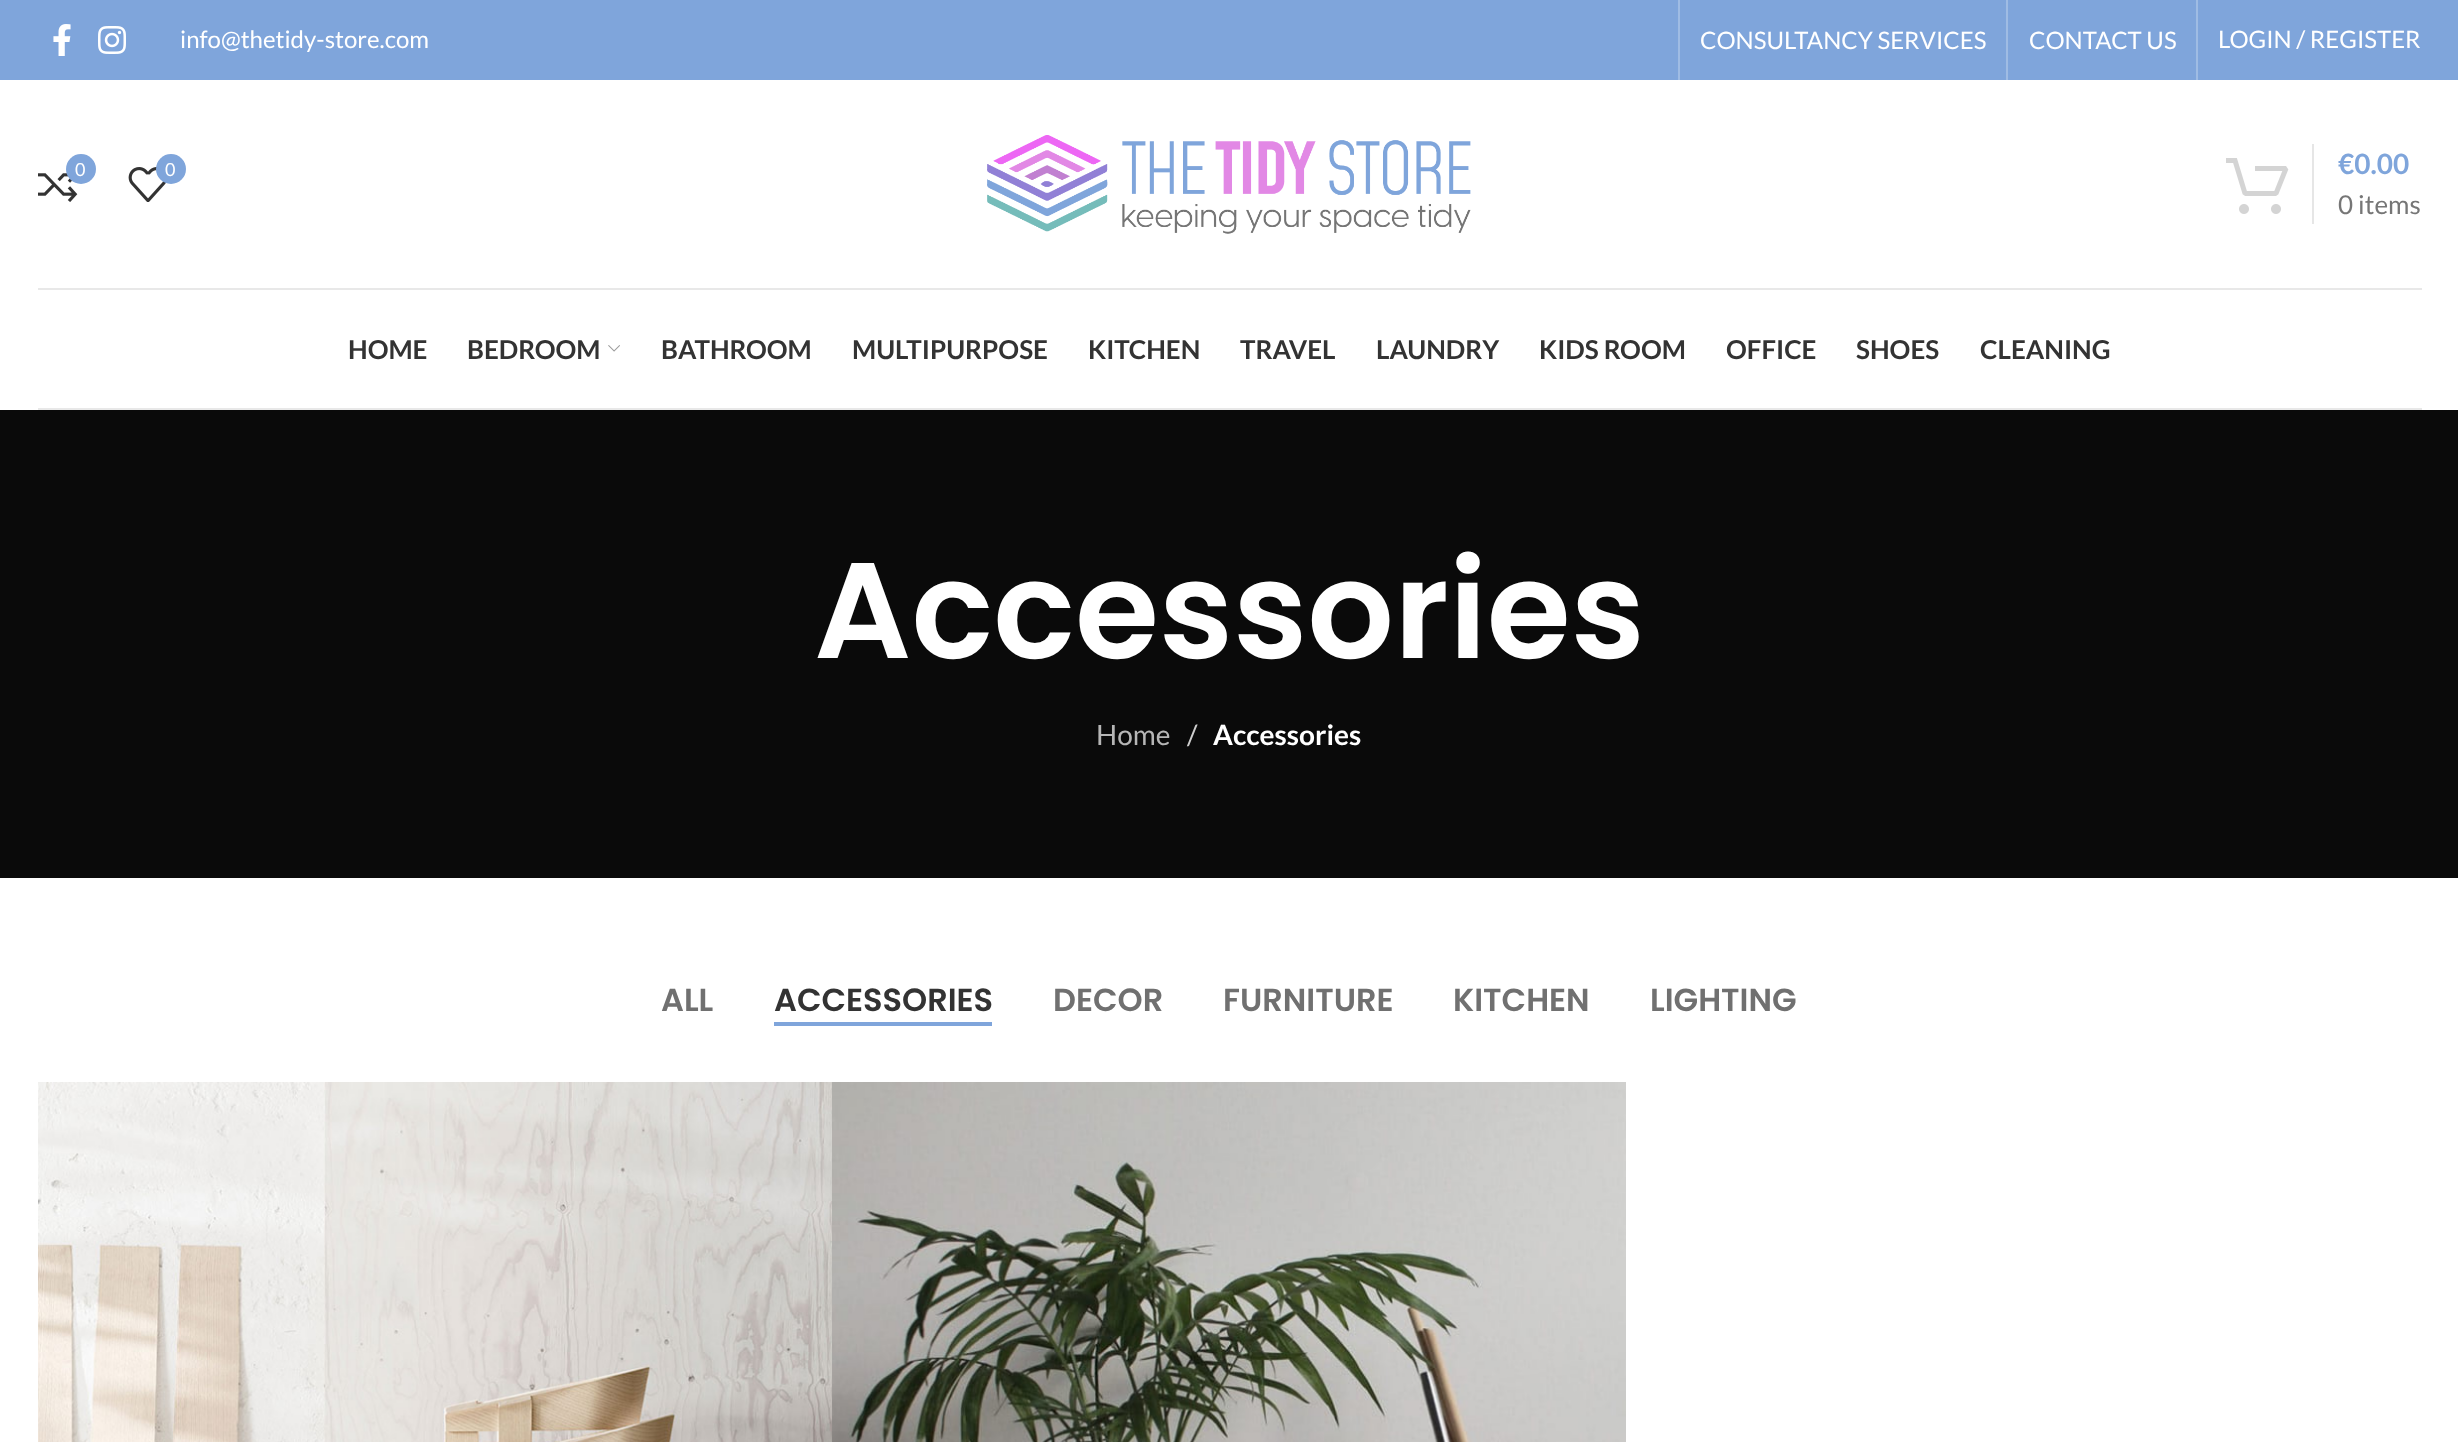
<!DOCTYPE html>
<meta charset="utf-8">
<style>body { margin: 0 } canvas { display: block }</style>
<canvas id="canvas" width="2458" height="1442"></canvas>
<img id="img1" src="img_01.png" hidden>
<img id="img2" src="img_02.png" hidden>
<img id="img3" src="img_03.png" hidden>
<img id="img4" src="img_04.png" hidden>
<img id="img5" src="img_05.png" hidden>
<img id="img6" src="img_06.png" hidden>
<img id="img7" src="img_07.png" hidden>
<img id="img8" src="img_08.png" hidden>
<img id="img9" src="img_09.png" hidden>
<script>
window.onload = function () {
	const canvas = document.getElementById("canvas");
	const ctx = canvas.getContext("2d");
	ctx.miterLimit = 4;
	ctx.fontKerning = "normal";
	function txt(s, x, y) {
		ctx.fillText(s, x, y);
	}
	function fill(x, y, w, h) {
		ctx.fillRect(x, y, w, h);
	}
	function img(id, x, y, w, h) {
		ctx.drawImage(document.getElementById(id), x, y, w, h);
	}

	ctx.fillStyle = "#FFFFFF";
	fill(0, 0, 2458, 1442);
	ctx.fillStyle = "#7FA5DB";
	fill(0, 0, 2458, 80);
	img("img1", 53, 24, 18, 32);
	img("img2", 98, 26, 28, 28);
	ctx.fillStyle = "#9FBCE4";
	fill(1678, 0, 2, 80);
	fill(2006, 0, 2, 80);
	fill(2196, 0, 2, 80);
	ctx.fillStyle = "#E8E8E8";
	fill(38, 288, 2384, 2);
	img("img3", 38, 173, 40, 29);
	ctx.fillStyle = "#7FA5DB";
	ctx.beginPath();
	ctx.arc(81, 169, 15, 0, Math.PI * 2);
	ctx.fill();
	img("img4", 128, 167, 38, 35);
	ctx.beginPath();
	ctx.arc(171, 169, 15, 0, Math.PI * 2);
	ctx.fill();
	img("img5", 987, 135, 484, 99);
	img("img6", 2226, 158, 63, 56);
	ctx.fillStyle = "#E6E6E6";
	fill(2312, 144, 2, 80);
	ctx.fillStyle = "#E8E8E8";
	fill(38, 408, 2384, 2);
	img("img7", 608, 345, 12, 7);
	ctx.fillStyle = "#0A0A0A";
	fill(0, 410, 2458, 468);
	ctx.fillStyle = "#7FA5DB";
	fill(774, 1022, 218, 4);
	img("img8", 38, 1082, 794, 360);
	img("img9", 832, 1082, 794, 360);
	ctx.font = "24px Lato";
	ctx.fillStyle = "#FFFFFF";
	txt("info@thetidy-store.com", 180, 48);
	txt("CONSULTANCY SERVICES", 1700, 49);
	txt("CONTACT US", 2029, 49);
	txt("LOGIN / REGISTER", 2218, 48);
	ctx.font = "18px Lato";
	txt("0", 75, 176);
	txt("0", 165, 176);
	ctx.font = "bold 28px Lato";
	ctx.fillStyle = "#7FA5DB";
	txt("€0.00", 2338, 174);
	ctx.font = "26px Lato";
	ctx.fillStyle = "#767676";
	txt("0 items", 2338, 214);
	ctx.font = "bold 26px Lato";
	ctx.fillStyle = "#333333";
	txt("HOME", 348, 359);
	txt("BEDROOM", 467, 359);
	txt("BATHROOM", 661, 359);
	txt("MULTIPURPOSE", 852, 359);
	txt("KITCHEN", 1088, 359);
	txt("TRAVEL", 1240, 359);
	txt("LAUNDRY", 1376, 359);
	txt("KIDS ROOM", 1539, 359);
	txt("OFFICE", 1726, 359);
	txt("SHOES", 1856, 359);
	txt("CLEANING", 1980, 359);
	ctx.font = "600 136px Poppins";
	ctx.fillStyle = "#FFFFFF";
	txt("Accessories", 814, 658);
	ctx.font = "28px Lato";
	ctx.fillStyle = "#B6B6B6";
	txt("Home", 1096, 745);
	ctx.fillStyle = "#CECECE";
	txt("/", 1187, 745);
	ctx.font = "bold 28px Lato";
	ctx.fillStyle = "#FFFFFF";
	txt("Accessories", 1213, 745);
	ctx.font = "600 32px Poppins";
	ctx.fillStyle = "#707070";
	txt("ALL", 661, 1011);
	ctx.fillStyle = "#333333";
	txt("ACCESSORIES", 774, 1011);
	ctx.fillStyle = "#707070";
	txt("DECOR", 1053, 1011);
	txt("FURNITURE", 1223, 1011);
	txt("KITCHEN", 1453, 1011);
	txt("LIGHTING", 1650, 1011);
};
</script>
